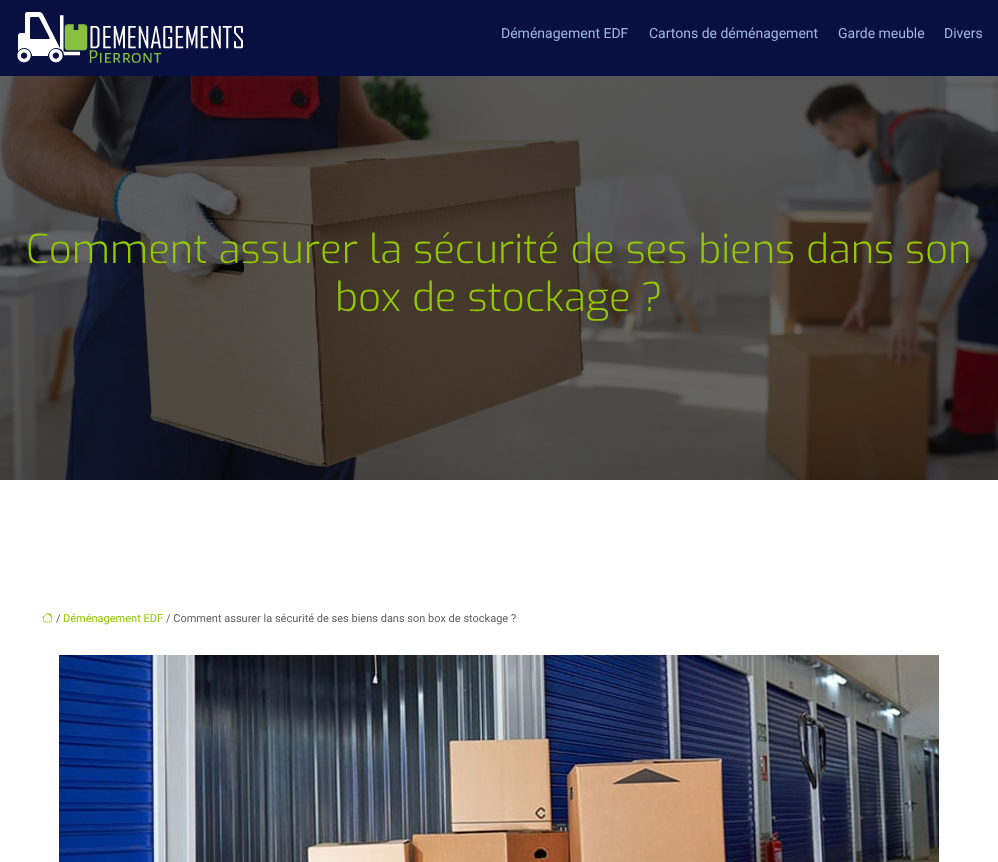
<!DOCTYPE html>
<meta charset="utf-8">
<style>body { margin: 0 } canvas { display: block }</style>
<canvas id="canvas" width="998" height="862"></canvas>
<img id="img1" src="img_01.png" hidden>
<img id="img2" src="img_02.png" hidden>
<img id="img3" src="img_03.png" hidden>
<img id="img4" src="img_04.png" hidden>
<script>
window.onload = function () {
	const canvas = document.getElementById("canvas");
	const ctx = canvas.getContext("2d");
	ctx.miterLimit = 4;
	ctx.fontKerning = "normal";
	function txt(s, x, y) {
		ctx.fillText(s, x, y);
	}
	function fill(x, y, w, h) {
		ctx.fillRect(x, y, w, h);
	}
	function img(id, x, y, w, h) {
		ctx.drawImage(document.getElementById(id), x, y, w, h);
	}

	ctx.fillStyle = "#FFFFFF";
	fill(0, 0, 998, 862);
	ctx.fillStyle = "#071041";
	fill(0, 0, 998, 76);
	img("img1", 17, 12, 226, 51);
	img("img2", 0, 76, 998, 404);
	img("img3", 42, 612, 11, 11);
	img("img4", 59, 655, 880, 207);
	ctx.font = "14px Roboto";
	ctx.fillStyle = "#A1B7E2";
	txt("Déménagement EDF", 501, 38);
	txt("Cartons de déménagement", 649, 38);
	txt("Garde meuble", 838, 38);
	txt("Divers", 944, 38);
	ctx.font = "300 40px Exo";
	ctx.fillStyle = "#93C800";
	txt("Comment assurer la sécurité de ses biens dans son", 26, 263);
	txt("box de stockage ?", 335, 311);
	ctx.font = "11px Roboto";
	ctx.fillStyle = "#626262";
	txt("/", 56, 622);
	ctx.fillStyle = "#93C800";
	txt("Déménagement EDF", 63, 622);
	ctx.fillStyle = "#626262";
	txt("/ Comment assurer la sécurité de ses biens dans son box de stockage ?", 166, 622);
};
</script>
